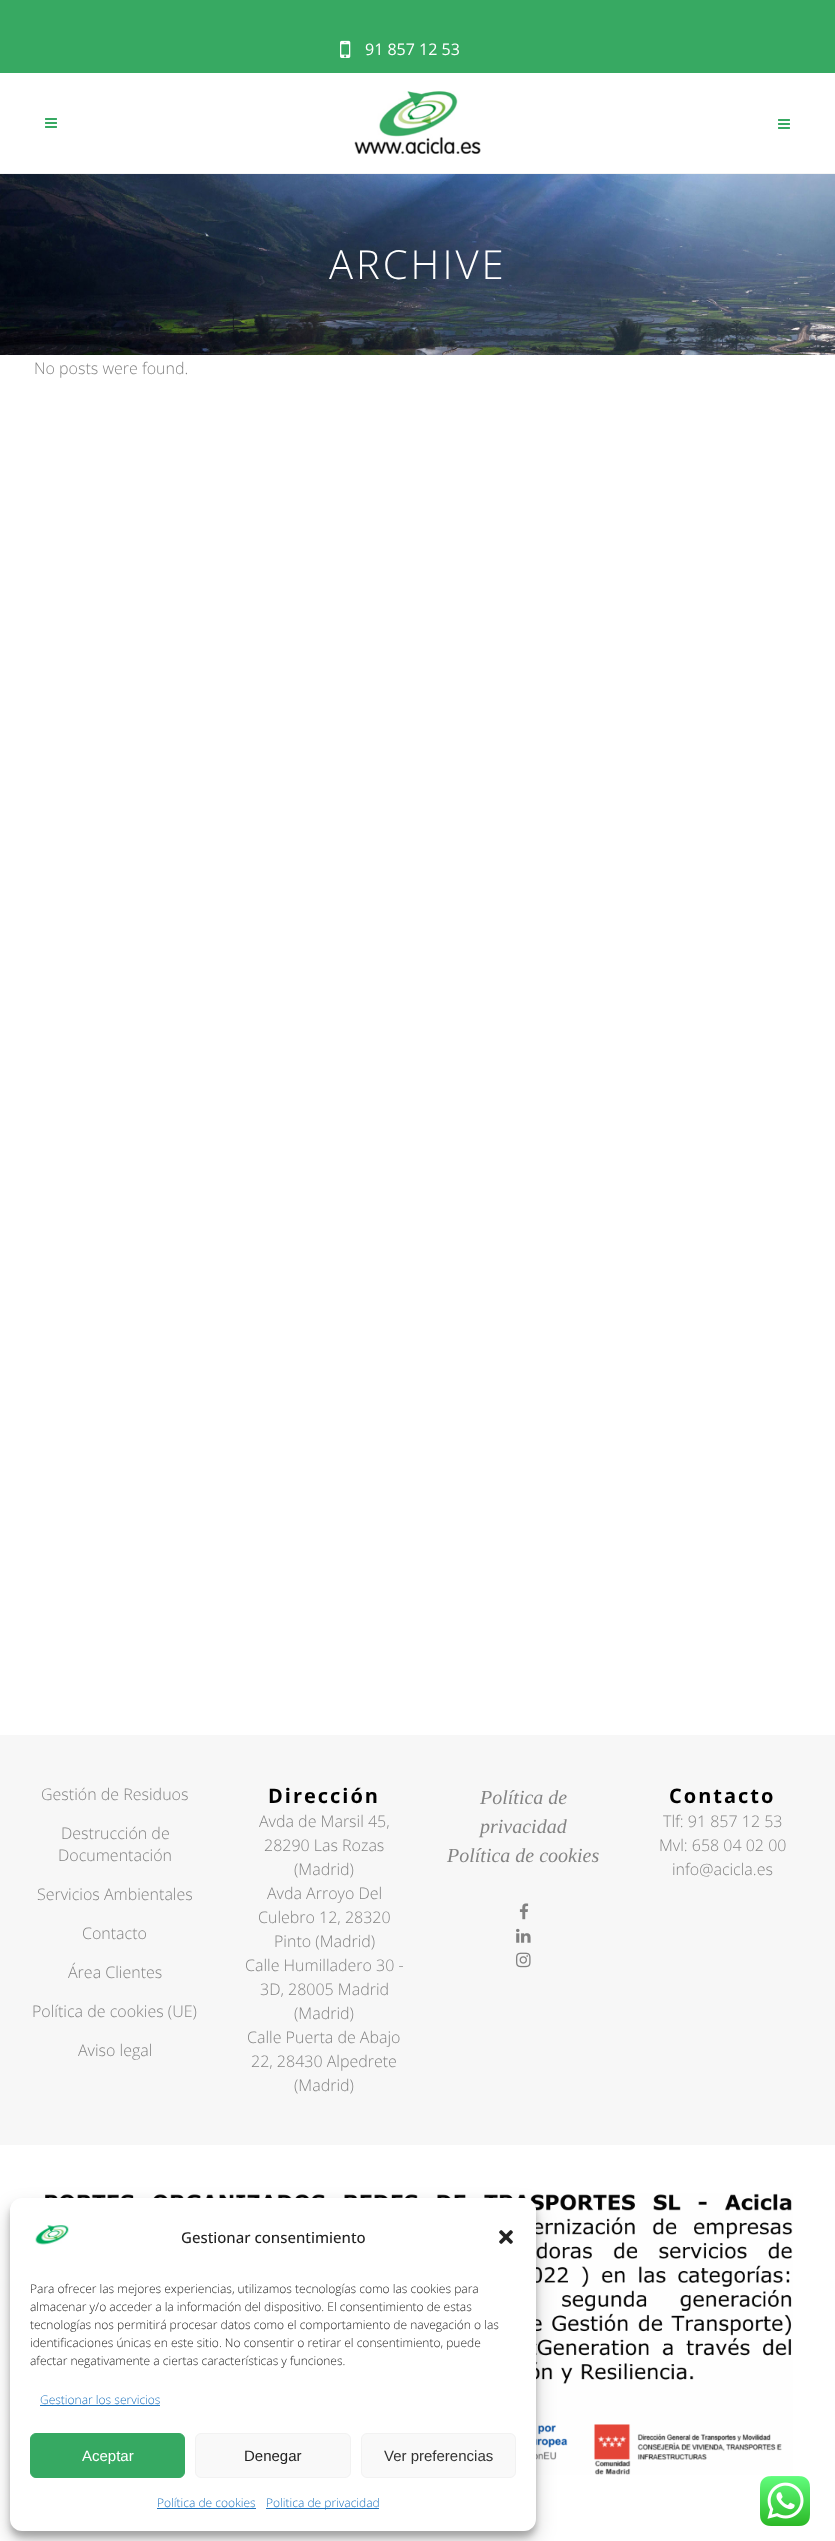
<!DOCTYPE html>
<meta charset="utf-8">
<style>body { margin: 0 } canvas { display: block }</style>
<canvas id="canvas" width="835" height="2541"></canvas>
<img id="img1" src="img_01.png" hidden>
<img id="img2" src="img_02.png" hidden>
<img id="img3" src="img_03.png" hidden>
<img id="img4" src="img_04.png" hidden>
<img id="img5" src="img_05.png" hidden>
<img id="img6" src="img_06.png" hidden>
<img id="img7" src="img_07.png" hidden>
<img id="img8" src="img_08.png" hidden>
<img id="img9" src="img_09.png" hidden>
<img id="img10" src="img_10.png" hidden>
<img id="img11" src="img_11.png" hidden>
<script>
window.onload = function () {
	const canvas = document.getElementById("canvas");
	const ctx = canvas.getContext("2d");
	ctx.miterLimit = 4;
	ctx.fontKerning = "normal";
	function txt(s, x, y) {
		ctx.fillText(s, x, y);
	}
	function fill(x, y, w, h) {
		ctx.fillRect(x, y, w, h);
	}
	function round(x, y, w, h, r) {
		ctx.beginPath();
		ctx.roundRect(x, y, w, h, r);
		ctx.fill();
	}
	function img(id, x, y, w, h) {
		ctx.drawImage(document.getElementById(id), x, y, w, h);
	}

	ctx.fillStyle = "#FFFFFF";
	fill(0, 0, 835, 2541);
	ctx.fillStyle = "#37A962";
	fill(0, 0, 835, 73);
	img("img1", 340, 40, 11, 18);
	ctx.fillStyle = "#F5F5F5";
	fill(0, 173, 835, 1);
	img("img2", 45, 118, 12, 10);
	img("img3", 354, 91, 127, 63);
	img("img2", 778, 119, 12, 10);
	img("img4", 0, 174, 835, 181);
	ctx.fillStyle = "#F7F7F7";
	fill(0, 1735, 835, 410);
	img("img5", 519, 1903, 10, 17);
	img("img6", 516, 1928, 15, 15);
	img("img7", 516, 1952, 15, 16);
	img("img8", 43, 2193, 750, 282);
	ctx.fillStyle = "rgba(0, 0, 0, 0.23)";
	ctx.filter = "blur(3px)";
	ctx.beginPath();
	ctx.roundRect(10, 2204, 526, 333, 12);
	ctx.fill();
	ctx.filter = "none";
	ctx.fillStyle = "rgba(0, 0, 0, 0.19)";
	ctx.filter = "blur(10px)";
	ctx.beginPath();
	ctx.roundRect(10, 2208, 526, 333, 12);
	ctx.fill();
	ctx.filter = "none";
	ctx.fillStyle = "#FFFFFF";
	round(10, 2198, 526, 333, 12);
	img("img9", 35, 2225, 34, 20);
	img("img10", 499, 2230, 14, 14);
	ctx.fillStyle = "#1E73BE";
	fill(40, 2405, 120, 1);
	ctx.fillStyle = "#36A962";
	ctx.beginPath();
	ctx.roundRect(30.5, 2433.5, 154, 44, 5.5);
	ctx.fill();
	ctx.strokeStyle = "#36A962";
	ctx.stroke();
	ctx.fillStyle = "#F9F9F9";
	ctx.beginPath();
	ctx.roundRect(195.5, 2433.5, 155, 44, 5.5);
	ctx.fill();
	ctx.strokeStyle = "#F2F2F2";
	ctx.stroke();
	ctx.beginPath();
	ctx.roundRect(361.5, 2433.5, 154, 44, 5.5);
	ctx.fill();
	ctx.stroke();
	ctx.fillStyle = "#1E73BE";
	fill(157, 2508, 99, 1);
	fill(266, 2508, 113, 1);
	img("img11", 760, 2476, 50, 50);
	ctx.font = "16px Open Sans";
	ctx.fillStyle = "#FFFFFF";
	txt("91 857 12 53", 365, 55);
	ctx.letterSpacing = "3px";
	ctx.font = "300 40px Open Sans";
	txt("ARCHIVE", 329, 279);
	ctx.letterSpacing = "0px";
	ctx.font = "300 16px Open Sans";
	ctx.fillStyle = "#848484";
	txt("No posts were found.", 34, 374);
	txt("Gestión de Residuos", 41, 1800);
	txt("Destrucción de", 61, 1839);
	txt("Documentación", 58, 1861);
	txt("Servicios Ambientales", 37, 1900);
	txt("Contacto", 82, 1939);
	txt("Área Clientes", 68, 1978);
	txt("Política de cookies (UE)", 32, 2017);
	txt("Aviso legal", 78, 2056);
	ctx.letterSpacing = "2px";
	ctx.font = "bold 20px Open Sans";
	ctx.fillStyle = "#000000";
	txt("Dirección", 268, 1803);
	ctx.letterSpacing = "0px";
	ctx.font = "300 16px Open Sans";
	ctx.fillStyle = "#848484";
	txt("Avda de Marsil 45,", 259, 1827);
	txt("28290 Las Rozas", 264, 1851);
	txt("(Madrid)", 294, 1875);
	txt("Avda Arroyo Del", 267, 1899);
	txt("Culebro 12, 28320", 258, 1923);
	txt("Pinto (Madrid)", 274, 1947);
	txt("Calle Humilladero 30 -", 245, 1971);
	txt("3D, 28005 Madrid", 260, 1995);
	txt("(Madrid)", 294, 2019);
	txt("Calle Puerta de Abajo", 247, 2043);
	txt("22, 28430 Alpedrete", 251, 2067);
	txt("(Madrid)", 294, 2091);
	ctx.font = "italic 20px Liberation Serif";
	txt("Política de", 480, 1804);
	txt("privacidad", 480, 1833);
	txt("Política de cookies", 447, 1862);
	ctx.letterSpacing = "2px";
	ctx.font = "bold 20px Open Sans";
	ctx.fillStyle = "#000000";
	txt("Contacto", 669, 1803);
	ctx.letterSpacing = "0px";
	ctx.font = "300 16px Open Sans";
	ctx.fillStyle = "#848484";
	txt("Tlf: 91 857 12 53", 663, 1827);
	txt("Mvl: 658 04 02 00", 659, 1851);
	txt("info@acicla.es", 672, 1875);
	ctx.font = "500 15px Open Sans";
	ctx.fillStyle = "#222222";
	txt("Gestionar consentimiento", 181, 2243);
	ctx.font = "300 12px Open Sans";
	txt("Para ofrecer las mejores experiencias, utilizamos tecnologías como las cookies para", 30, 2293);
	txt("almacenar y/o acceder a la información del dispositivo. El consentimiento de estas", 30, 2311);
	txt("tecnologías nos permitirá procesar datos como el comportamiento de navegación o las", 30, 2329);
	txt("identificaciones únicas en este sitio. No consentir o retirar el consentimiento, puede", 30, 2347);
	txt("afectar negativamente a ciertas características y funciones.", 30, 2365);
	ctx.fillStyle = "#1E73BE";
	txt("Gestionar los servicios", 40, 2404);
	ctx.font = "15px Liberation Sans";
	ctx.fillStyle = "#FFFFFF";
	txt("Aceptar", 82, 2461);
	ctx.fillStyle = "#222222";
	txt("Denegar", 244, 2461);
	ctx.fillStyle = "#333333";
	txt("Ver preferencias", 384, 2461);
	ctx.font = "300 12px Open Sans";
	ctx.fillStyle = "#1E73BE";
	txt("Política de cookies", 157, 2507);
	txt("Politica de privacidad", 266, 2507);
};
</script>
